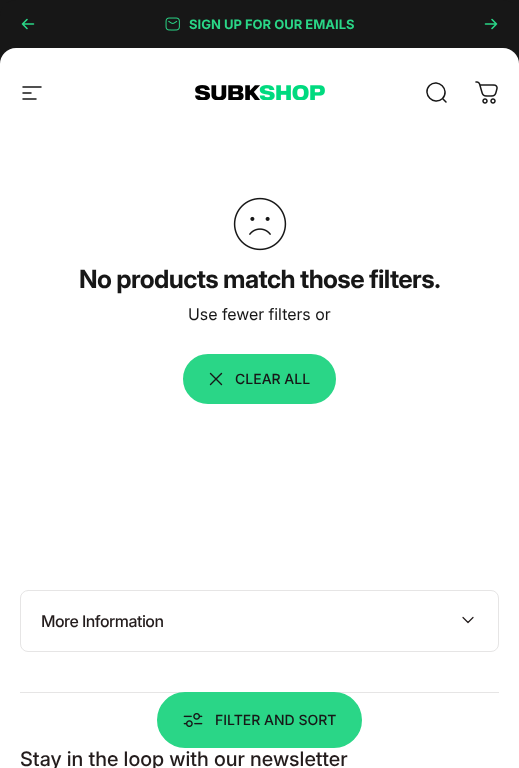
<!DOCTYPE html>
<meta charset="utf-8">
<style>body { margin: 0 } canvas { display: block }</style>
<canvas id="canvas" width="519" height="768"></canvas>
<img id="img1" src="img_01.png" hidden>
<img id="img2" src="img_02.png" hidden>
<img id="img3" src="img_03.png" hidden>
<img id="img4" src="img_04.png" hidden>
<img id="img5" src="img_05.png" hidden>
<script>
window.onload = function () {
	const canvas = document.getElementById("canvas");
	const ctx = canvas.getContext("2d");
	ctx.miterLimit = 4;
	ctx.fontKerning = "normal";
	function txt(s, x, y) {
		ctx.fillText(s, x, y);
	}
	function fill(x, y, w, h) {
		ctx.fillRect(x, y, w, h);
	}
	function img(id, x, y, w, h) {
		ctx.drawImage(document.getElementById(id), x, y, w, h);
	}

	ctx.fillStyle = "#FFFFFF";
	fill(0, 0, 519, 768);
	ctx.fillStyle = "#171717";
	fill(0, 0, 519, 16);
	ctx.beginPath();
	ctx.roundRect(0, 0, 519, 64, [16, 16, 0, 0]);
	ctx.fill();
	ctx.beginPath();
	ctx.moveTo(27, 19.5);
	ctx.lineTo(22.5, 24);
	ctx.moveTo(22.5, 24);
	ctx.lineTo(27, 28.5);
	ctx.moveTo(22.5, 24);
	ctx.lineTo(33.5, 24);
	ctx.strokeStyle = "#2AD687";
	ctx.lineWidth = 1.6;
	ctx.lineCap = "round";
	ctx.lineJoin = "round";
	ctx.stroke();
	img("img1", 165, 17, 15, 14);
	ctx.beginPath();
	ctx.moveTo(485.5, 24);
	ctx.lineTo(496.5, 24);
	ctx.moveTo(496.5, 24);
	ctx.lineTo(492, 19.5);
	ctx.moveTo(496.5, 24);
	ctx.lineTo(492, 28.5);
	ctx.stroke();
	ctx.fillStyle = "#FFFFFF";
	ctx.beginPath();
	ctx.roundRect(0, 48, 519, 67, [16, 16, 0, 0]);
	ctx.fill();
	ctx.beginPath();
	ctx.moveTo(23, 87);
	ctx.lineTo(41, 87);
	ctx.moveTo(23, 93);
	ctx.lineTo(31, 93);
	ctx.moveTo(23, 99);
	ctx.lineTo(36, 99);
	ctx.strokeStyle = "#171717";
	ctx.lineWidth = 1.5;
	ctx.lineJoin = "miter";
	ctx.stroke();
	img("img2", 195, 85, 130, 15);
	ctx.beginPath();
	ctx.moveTo(446, 102);
	ctx.lineTo(442.5, 98.5);
	ctx.moveTo(442.5, 98.5);
	ctx.bezierCurveTo(450.5, 90, 438, 77.5, 429.5, 85.5);
	ctx.bezierCurveTo(421.5, 94, 434, 106.5, 442.5, 98.5);
	ctx.closePath();
	ctx.stroke();
	img("img3", 475, 81, 23, 23);
	img("img4", 233, 197, 54, 54);
	ctx.fillStyle = "#2AD687";
	ctx.beginPath();
	ctx.roundRect(184, 355, 151, 48, 24);
	ctx.fill();
	ctx.strokeStyle = "#2AD687";
	ctx.lineWidth = 2;
	ctx.stroke();
	ctx.beginPath();
	ctx.moveTo(210.5, 384.5);
	ctx.lineTo(221.5, 373.5);
	ctx.moveTo(210.5, 373.5);
	ctx.lineTo(221.5, 384.5);
	ctx.strokeStyle = "#171717";
	ctx.lineWidth = 1.4;
	ctx.lineJoin = "round";
	ctx.stroke();
	ctx.fillStyle = "#E6E5E5";
	fill(20, 692, 479, 1);
	ctx.fillStyle = "#2AD687";
	ctx.beginPath();
	ctx.roundRect(158, 693, 203, 54, 27);
	ctx.fill();
	ctx.strokeStyle = "#2AD687";
	ctx.lineWidth = 2;
	ctx.lineJoin = "miter";
	ctx.stroke();
	img("img5", 183, 713, 20, 14);
	ctx.beginPath();
	ctx.roundRect(20.5, 590.5, 478, 61, 7.5);
	ctx.strokeStyle = "#E6E5E5";
	ctx.lineWidth = 1;
	ctx.stroke();
	ctx.beginPath();
	ctx.moveTo(463, 617.5);
	ctx.lineTo(468, 622.5);
	ctx.lineTo(473, 617.5);
	ctx.strokeStyle = "#231C1C";
	ctx.lineWidth = 1.2;
	ctx.lineJoin = "round";
	ctx.stroke();
	ctx.font = "bold 13px Inter";
	txt("SIGN UP FOR OUR EMAILS", 189, 29);
	ctx.letterSpacing = "-0.6px";
	ctx.font = "bold 25.1px 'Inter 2'";
	ctx.fillStyle = "#171717";
	txt("No products match those filters.", 79, 288);
	ctx.letterSpacing = "0px";
	ctx.font = "16px Inter";
	txt("Use fewer filters or", 188, 320);
	ctx.font = "500 14px Inter";
	txt("CLEAR ALL", 235, 384);
	txt("FILTER AND SORT", 215, 725);
	ctx.letterSpacing = "-0.5px";
	ctx.font = "500 16px 'Inter 2'";
	ctx.fillStyle = "#231C1C";
	txt("More Information", 41, 627);
	ctx.letterSpacing = "0px";
	ctx.font = "500 20px 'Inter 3'";
	txt("Stay in the loop with our newsletter", 20, 766);
};
</script>
